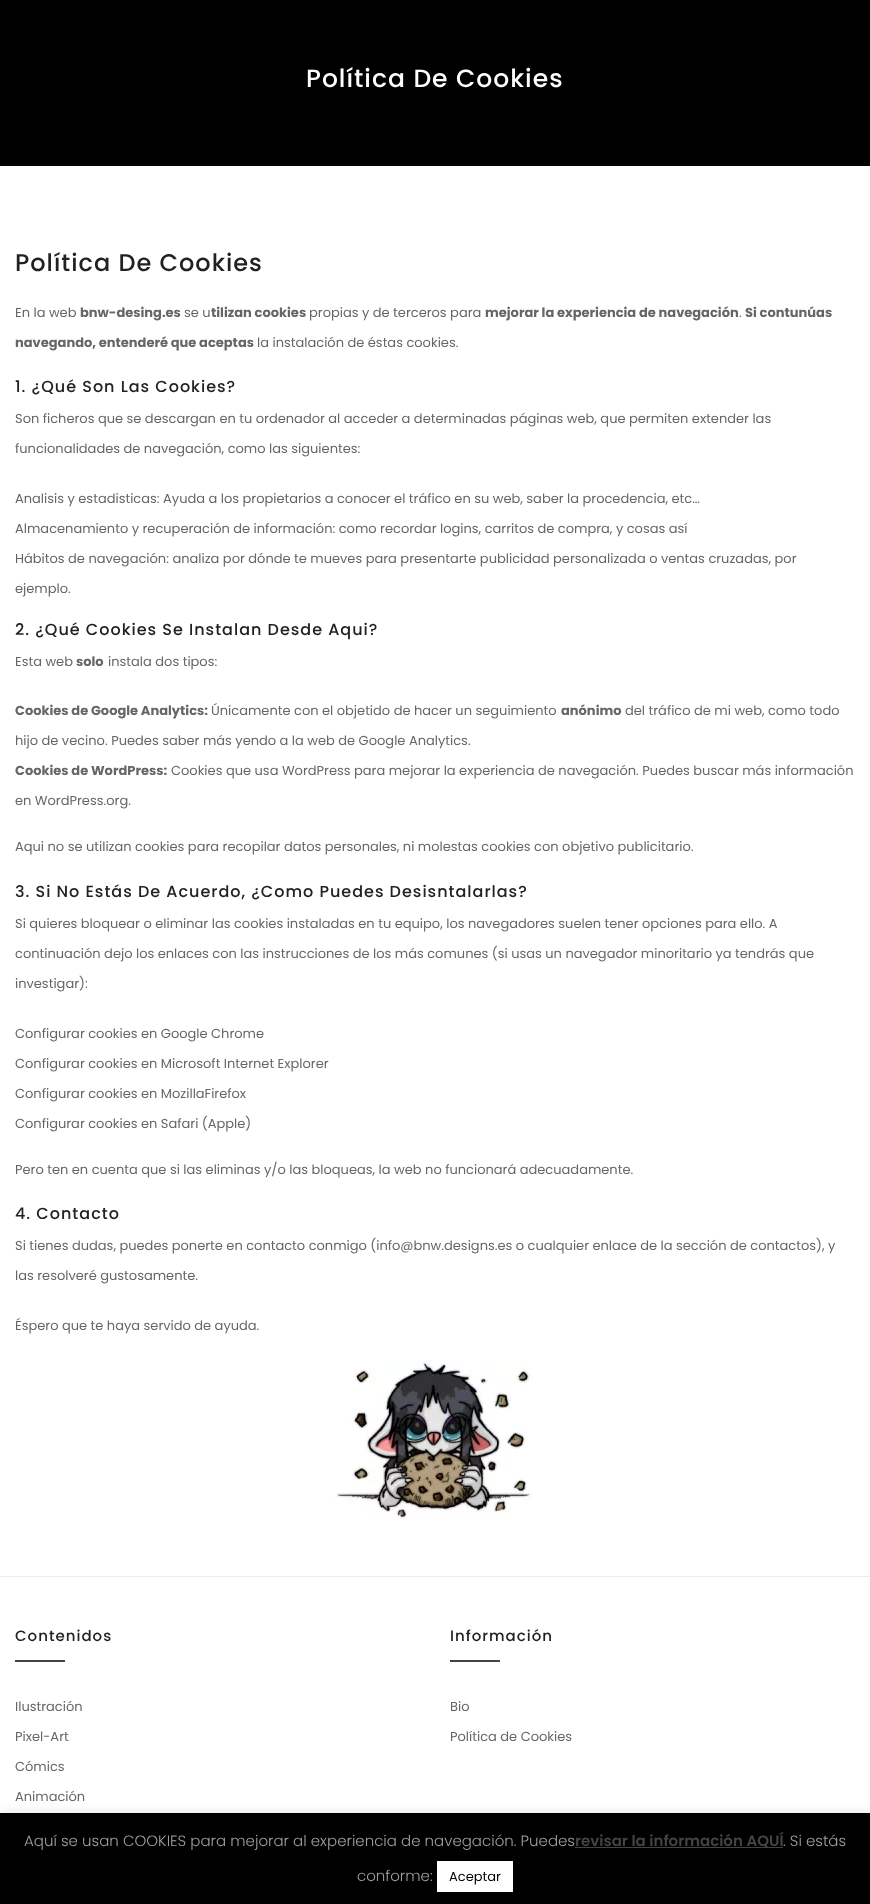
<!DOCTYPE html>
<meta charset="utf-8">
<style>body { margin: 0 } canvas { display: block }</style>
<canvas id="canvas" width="870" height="1904"></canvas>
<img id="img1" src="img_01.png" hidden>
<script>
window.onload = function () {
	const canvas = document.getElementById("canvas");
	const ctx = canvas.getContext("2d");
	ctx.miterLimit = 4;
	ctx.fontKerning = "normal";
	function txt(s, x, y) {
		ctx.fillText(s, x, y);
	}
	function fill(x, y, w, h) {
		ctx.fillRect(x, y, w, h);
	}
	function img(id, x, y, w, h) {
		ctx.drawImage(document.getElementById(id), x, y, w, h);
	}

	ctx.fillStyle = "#FFFFFF";
	fill(0, 0, 870, 1904);
	ctx.fillStyle = "#000000";
	fill(0, 0, 870, 166);
	img("img1", 335, 1360, 197, 160);
	ctx.fillStyle = "#EEEEEE";
	fill(0, 1576, 870, 1);
	ctx.fillStyle = "#444444";
	fill(15, 1660, 50, 2);
	fill(450, 1660, 50, 2);
	ctx.fillStyle = "rgba(172, 171, 171, 0.3)";
	ctx.filter = "blur(5px)";
	ctx.beginPath();
	ctx.rect(0, 1812, 870, 91);
	ctx.fill();
	ctx.filter = "none";
	ctx.fillStyle = "#000000";
	fill(0, 1813, 870, 91);
	ctx.fillStyle = "#444444";
	fill(575, 1847, 208, 1);
	ctx.fillStyle = "#FFFFFF";
	fill(437, 1861, 76, 31);
	ctx.letterSpacing = "1px";
	ctx.font = "500 25px Poppins";
	txt("Política De Cookies", 306, 87);
	ctx.font = "500 24px Poppins";
	ctx.fillStyle = "#222222";
	txt("Política De Cookies", 15, 271);
	ctx.letterSpacing = "0px";
	ctx.font = "13px Poppins";
	ctx.fillStyle = "#666666";
	txt("En la web", 15, 317);
	ctx.font = "bold 13px Poppins";
	txt("bnw-desing.es", 80, 317);
	ctx.font = "13px Poppins";
	txt("se u", 184, 317);
	ctx.font = "bold 13px Poppins";
	txt("tilizan cookies", 211, 317);
	ctx.font = "13px Poppins";
	txt("propias y de terceros para", 309, 317);
	ctx.font = "bold 13px Poppins";
	txt("mejorar la experiencia de navegación", 485, 317);
	ctx.font = "13px Poppins";
	txt(".", 739, 317);
	ctx.font = "bold 13px Poppins";
	txt("Si contunúas", 745, 317);
	txt("navegando, entenderé que aceptas", 15, 347);
	ctx.font = "13px Poppins";
	txt("la instalación de éstas cookies.", 257, 347);
	ctx.letterSpacing = "1px";
	ctx.font = "500 16px Poppins";
	ctx.fillStyle = "#222222";
	txt("1. ¿Qué Son Las Cookies?", 15, 392);
	ctx.letterSpacing = "0px";
	ctx.font = "13px Poppins";
	ctx.fillStyle = "#666666";
	txt("Son ficheros que se descargan en tu ordenador al acceder a determinadas páginas web, que permiten extender las", 15, 423);
	txt("funcionalidades de navegación, como las siguientes:", 15, 453);
	txt("Analisis y estadisticas: Ayuda a los propietarios a conocer el tráfico en su web, saber la procedencia, etc…", 15, 503);
	txt("Almacenamiento y recuperación de información: como recordar logins, carritos de compra, y cosas así", 15, 533);
	txt("Hábitos de navegación: analiza por dónde te mueves para presentarte publicidad personalizada o ventas cruzadas, por", 15, 563);
	txt("ejemplo.", 15, 593);
	ctx.letterSpacing = "1px";
	ctx.font = "500 16px Poppins";
	ctx.fillStyle = "#222222";
	txt("2. ¿Qué Cookies Se Instalan Desde Aqui?", 15, 635);
	ctx.letterSpacing = "0px";
	ctx.font = "13px Poppins";
	ctx.fillStyle = "#666666";
	txt("Esta web", 15, 666);
	ctx.font = "bold 13px Poppins";
	txt("solo", 76, 666);
	ctx.font = "13px Poppins";
	txt("instala dos tipos:", 108, 666);
	ctx.font = "bold 13px Poppins";
	txt("Cookies de Google Analytics:", 15, 715);
	ctx.font = "13px Poppins";
	txt("Únicamente con el objetido de hacer un seguimiento", 211, 715);
	ctx.font = "bold 13px Poppins";
	txt("anónimo", 561, 715);
	ctx.font = "13px Poppins";
	txt("del tráfico de mi web, como todo", 625, 715);
	txt("hijo de vecino. Puedes saber más yendo a la web de Google Analytics.", 15, 745);
	ctx.font = "bold 13px Poppins";
	txt("Cookies de WordPress:", 15, 775);
	ctx.font = "13px Poppins";
	txt("Cookies que usa WordPress para mejorar la experiencia de navegación. Puedes buscar más información", 171, 775);
	txt("en WordPress.org.", 15, 805);
	txt("Aqui no se utilizan cookies para recopilar datos personales, ni molestas cookies con objetivo publicitario.", 15, 851);
	ctx.letterSpacing = "1px";
	ctx.font = "500 16px Poppins";
	ctx.fillStyle = "#222222";
	txt("3. Si No Estás De Acuerdo, ¿Como Puedes Desisntalarlas?", 15, 897);
	ctx.letterSpacing = "0px";
	ctx.font = "13px Poppins";
	ctx.fillStyle = "#666666";
	txt("Si quieres bloquear o eliminar las cookies instaladas en tu equipo, los navegadores suelen tener opciones para ello. A", 15, 928);
	txt("continuación dejo los enlaces con las instrucciones de los más comunes (si usas un navegador minoritario ya tendrás que", 15, 958);
	txt("investigar):", 15, 988);
	txt("Configurar cookies en Google Chrome", 15, 1038);
	txt("Configurar cookies en Microsoft Internet Explorer", 15, 1068);
	txt("Configurar cookies en MozillaFirefox", 15, 1098);
	txt("Configurar cookies en Safari (Apple)", 15, 1128);
	txt("Pero ten en cuenta que si las eliminas y/o las bloqueas, la web no funcionará adecuadamente.", 15, 1174);
	ctx.letterSpacing = "1px";
	ctx.font = "500 16px Poppins";
	ctx.fillStyle = "#222222";
	txt("4. Contacto", 15, 1219);
	ctx.letterSpacing = "0px";
	ctx.font = "13px Poppins";
	ctx.fillStyle = "#666666";
	txt("Si tienes dudas, puedes ponerte en contacto conmigo (info@bnw.designs.es o cualquier enlace de la sección de contactos), y", 15, 1250);
	txt("las resolveré gustosamente.", 15, 1280);
	txt("Éspero que te haya servido de ayuda.", 15, 1330);
	ctx.letterSpacing = "1px";
	ctx.font = "500 15px Poppins";
	ctx.fillStyle = "#222222";
	txt("Contenidos", 15, 1641);
	ctx.letterSpacing = "0px";
	ctx.font = "13px Poppins";
	ctx.fillStyle = "#666666";
	txt("Ilustración", 15, 1711);
	txt("Pixel-Art", 15, 1741);
	txt("Cómics", 15, 1771);
	txt("Animación", 15, 1801);
	ctx.letterSpacing = "1px";
	ctx.font = "500 15px Poppins";
	ctx.fillStyle = "#222222";
	txt("Información", 450, 1641);
	ctx.letterSpacing = "0px";
	ctx.font = "13px Poppins";
	ctx.fillStyle = "#666666";
	txt("Bio", 450, 1711);
	txt("Política de Cookies", 450, 1741);
	ctx.font = "300 15px Poppins";
	ctx.fillStyle = "#A0A0A0";
	txt("Aquí se usan COOKIES para mejorar al experiencia de navegación. Puedes", 24, 1846);
	ctx.font = "600 15px Poppins";
	ctx.fillStyle = "#444444";
	txt("revisar la información AQUÍ", 575, 1846);
	ctx.font = "300 15px Poppins";
	ctx.fillStyle = "#A0A0A0";
	txt(". Si estás", 783, 1846);
	txt("conforme:", 357, 1881);
	ctx.font = "13px Poppins";
	ctx.fillStyle = "#020202";
	txt("Aceptar", 449, 1881);
};
</script>
